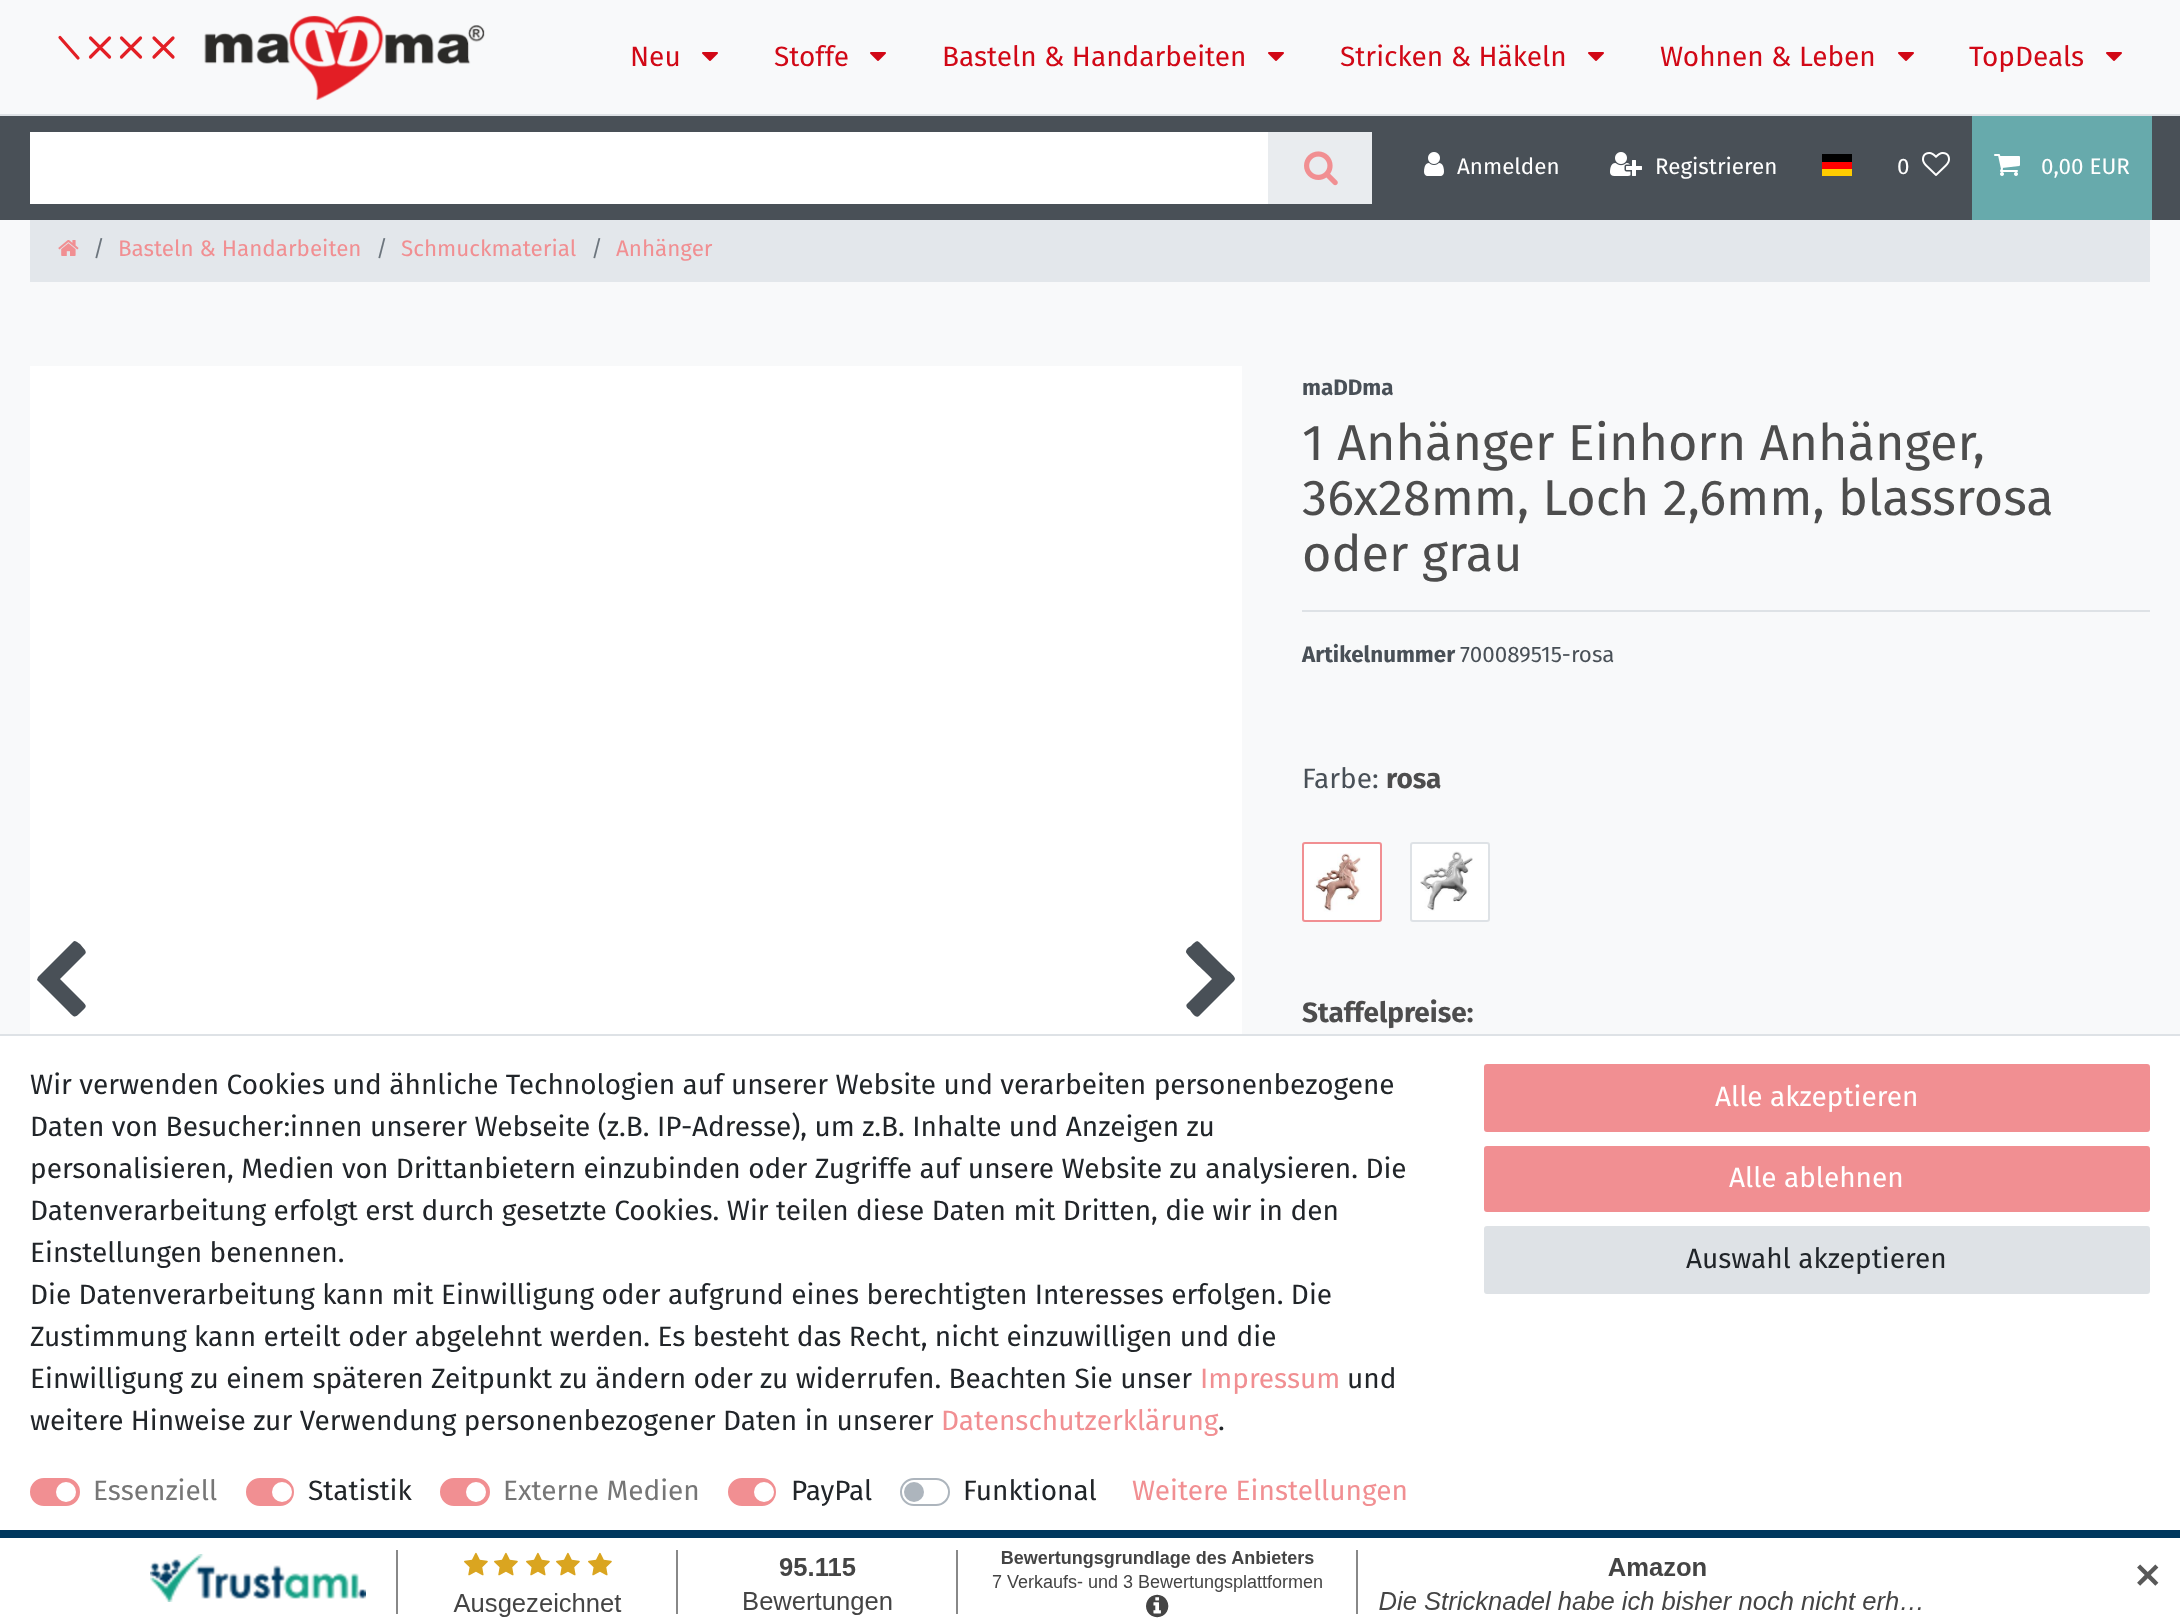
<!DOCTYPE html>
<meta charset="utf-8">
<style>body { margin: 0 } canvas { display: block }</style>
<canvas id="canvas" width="2180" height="1624"></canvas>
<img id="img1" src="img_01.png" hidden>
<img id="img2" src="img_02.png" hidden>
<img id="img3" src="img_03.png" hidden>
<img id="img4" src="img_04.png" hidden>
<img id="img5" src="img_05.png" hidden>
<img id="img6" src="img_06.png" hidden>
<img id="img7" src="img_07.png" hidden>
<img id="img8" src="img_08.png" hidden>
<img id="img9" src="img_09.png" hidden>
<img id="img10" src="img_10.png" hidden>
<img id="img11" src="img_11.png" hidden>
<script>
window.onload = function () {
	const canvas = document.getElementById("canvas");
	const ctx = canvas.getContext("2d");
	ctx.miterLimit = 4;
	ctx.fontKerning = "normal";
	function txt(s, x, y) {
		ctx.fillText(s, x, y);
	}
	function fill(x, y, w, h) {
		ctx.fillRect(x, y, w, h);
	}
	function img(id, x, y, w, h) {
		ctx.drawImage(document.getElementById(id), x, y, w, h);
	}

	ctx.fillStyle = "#F8F9FA";
	fill(0, 0, 2180, 1624);
	ctx.fillStyle = "#DEE2E6";
	fill(0, 114, 2180, 2);
	ctx.beginPath();
	ctx.moveTo(173, 38);
	ctx.lineTo(154, 57);
	ctx.moveTo(154, 38);
	ctx.lineTo(173, 57);
	ctx.moveTo(140.5, 38);
	ctx.lineTo(121.5, 57);
	ctx.moveTo(121.5, 38);
	ctx.lineTo(140.5, 57);
	ctx.strokeStyle = "#E31F25";
	ctx.lineWidth = 3.2;
	ctx.lineCap = "round";
	ctx.stroke();
	ctx.beginPath();
	ctx.moveTo(109.5, 38);
	ctx.lineTo(90.5, 57);
	ctx.moveTo(60, 37.5);
	ctx.lineTo(78, 58);
	ctx.moveTo(90.5, 38);
	ctx.lineTo(109.5, 57);
	ctx.stroke();
	img("img1", 204, 15, 281, 85);
	img("img2", 702, 52, 16, 9);
	img("img2", 870, 52, 16, 9);
	img("img2", 1268, 52, 16, 9);
	img("img2", 1588, 52, 16, 9);
	img("img2", 1898, 52, 16, 9);
	img("img2", 2106, 52, 16, 9);
	ctx.fillStyle = "#495057";
	fill(0, 116, 2180, 104);
	ctx.fillStyle = "#FFFFFF";
	fill(30, 132, 1238, 72);
	ctx.fillStyle = "#E9ECEF";
	fill(1268, 132, 104, 72);
	img("img3", 1304, 151, 34, 35);
	img("img4", 1424, 152, 20, 24);
	img("img5", 1610, 152, 32, 24);
	ctx.fillStyle = "#FFCC00";
	fill(1822, 169, 30, 7);
	ctx.fillStyle = "#000000";
	fill(1822, 154, 30, 8);
	ctx.fillStyle = "#FF0000";
	fill(1822, 162, 30, 7);
	img("img6", 1922, 152, 28, 24);
	ctx.fillStyle = "#67AAAC";
	fill(1972, 116, 180, 104);
	img("img7", 1994, 154, 26, 22);
	ctx.fillStyle = "#E3E7EB";
	fill(30, 220, 2120, 62);
	img("img8", 58, 240, 21, 16);
	ctx.fillStyle = "#FFFFFF";
	fill(30, 366, 1212, 668);
	ctx.fillStyle = "#495057";
	ctx.beginPath();
	ctx.moveTo(85, 954);
	ctx.lineTo(60, 979);
	ctx.lineTo(81, 1000);
	ctx.bezierCurveTo(88, 1007, 87, 1006, 80, 1013);
	ctx.bezierCurveTo(74, 1019, 74, 1017, 67, 1010);
	ctx.lineTo(37, 980);
	ctx.lineTo(38, 977);
	ctx.lineTo(73, 942);
	ctx.bezierCurveTo(75, 939, 78, 943, 80, 944);
	ctx.lineTo(85, 950);
	ctx.bezierCurveTo(86, 952, 86, 953, 85, 954);
	ctx.closePath();
	ctx.fill();
	ctx.beginPath();
	ctx.moveTo(1234, 981);
	ctx.lineTo(1199, 1016);
	ctx.bezierCurveTo(1196, 1019, 1191, 1012, 1190, 1010);
	ctx.bezierCurveTo(1188, 1009, 1185, 1006, 1187, 1004);
	ctx.lineTo(1212, 979);
	ctx.bezierCurveTo(1209, 975, 1186, 955, 1186, 952);
	ctx.bezierCurveTo(1186, 949, 1189, 947, 1191, 946);
	ctx.bezierCurveTo(1198, 939, 1197, 940, 1205, 948);
	ctx.lineTo(1228, 971);
	ctx.bezierCurveTo(1229, 971, 1235, 976, 1235, 979);
	ctx.closePath();
	ctx.fill();
	ctx.fillStyle = "#DEE2E6";
	fill(1302, 610, 848, 2);
	ctx.fillStyle = "#FFFFFF";
	ctx.beginPath();
	ctx.roundRect(1303, 843, 78, 78, 2);
	ctx.fill();
	ctx.strokeStyle = "#F18F92";
	ctx.lineWidth = 2;
	ctx.stroke();
	img("img9", 1314, 853, 47, 59);
	ctx.beginPath();
	ctx.roundRect(1411, 843, 78, 78, 2);
	ctx.fill();
	ctx.strokeStyle = "#DEE2E6";
	ctx.stroke();
	img("img10", 1420, 851, 53, 60);
	fill(0, 1036, 2180, 588);
	ctx.fillStyle = "#DEE2E6";
	fill(0, 1034, 2180, 2);
	ctx.fillStyle = "#F18F92";
	ctx.beginPath();
	ctx.roundRect(31, 1479, 48, 26, 13);
	ctx.fill();
	ctx.strokeStyle = "#F18F92";
	ctx.stroke();
	ctx.fillStyle = "#FFFFFF";
	ctx.beginPath();
	ctx.arc(66, 1492, 10, 0, Math.PI * 2);
	ctx.fill();
	ctx.fillStyle = "#F18F92";
	ctx.beginPath();
	ctx.roundRect(247, 1479, 46, 26, 13);
	ctx.fill();
	ctx.stroke();
	ctx.fillStyle = "#FFFFFF";
	ctx.beginPath();
	ctx.arc(282, 1492, 10, 0, Math.PI * 2);
	ctx.fill();
	ctx.fillStyle = "#F18F92";
	ctx.beginPath();
	ctx.roundRect(441, 1479, 48, 26, 13);
	ctx.fill();
	ctx.stroke();
	ctx.fillStyle = "#FFFFFF";
	ctx.beginPath();
	ctx.arc(476, 1492, 10, 0, Math.PI * 2);
	ctx.fill();
	ctx.fillStyle = "#F18F92";
	ctx.beginPath();
	ctx.roundRect(729, 1479, 46, 26, 13);
	ctx.fill();
	ctx.stroke();
	ctx.fillStyle = "#FFFFFF";
	ctx.beginPath();
	ctx.arc(764, 1492, 10, 0, Math.PI * 2);
	ctx.fill();
	ctx.beginPath();
	ctx.roundRect(901, 1479, 48, 26, 13);
	ctx.strokeStyle = "#ADB5BD";
	ctx.stroke();
	ctx.fillStyle = "#ADB5BD";
	ctx.beginPath();
	ctx.arc(914, 1492, 10, 0, Math.PI * 2);
	ctx.fill();
	ctx.fillStyle = "#F18F92";
	ctx.beginPath();
	ctx.roundRect(1485, 1065, 664, 66, 2);
	ctx.fill();
	ctx.strokeStyle = "#F18F92";
	ctx.stroke();
	ctx.beginPath();
	ctx.roundRect(1485, 1147, 664, 64, 2);
	ctx.fill();
	ctx.stroke();
	ctx.fillStyle = "#DEE2E6";
	ctx.beginPath();
	ctx.roundRect(1485, 1227, 664, 66, 2);
	ctx.fill();
	ctx.strokeStyle = "#DEE2E6";
	ctx.stroke();
	img("img11", 0, 1530, 2180, 88);
	ctx.font = "28px Fira Sans";
	ctx.fillStyle = "#D10816";
	txt("Neu", 630, 66);
	txt("Stoffe", 774, 66);
	txt("Basteln & Handarbeiten", 942, 66);
	txt("Stricken & Häkeln", 1340, 66);
	txt("Wohnen & Leben", 1660, 66);
	txt("TopDeals", 1969, 66);
	ctx.font = "22.4px Fira Sans";
	ctx.fillStyle = "#FFFFFF";
	txt("Anmelden", 1457, 174);
	txt("Registrieren", 1655, 174);
	txt("0", 1897, 174);
	txt("0,00 EUR", 2041, 174);
	ctx.fillStyle = "#6C757D";
	txt("/", 93, 256);
	ctx.fillStyle = "#F18F92";
	txt("Basteln & Handarbeiten", 118, 256);
	ctx.fillStyle = "#6C757D";
	txt("/", 376, 256);
	ctx.fillStyle = "#F18F92";
	txt("Schmuckmaterial", 401, 256);
	ctx.fillStyle = "#6C757D";
	txt("/", 591, 256);
	ctx.fillStyle = "#F18F92";
	txt("Anhänger", 616, 256);
	ctx.font = "bold 22.4px Fira Sans";
	ctx.fillStyle = "#495057";
	txt("maDDma", 1302, 395);
	ctx.font = "50.4px Fira Sans";
	ctx.fillStyle = "#4D4D4D";
	txt("1 Anhänger Einhorn Anhänger,", 1302, 460);
	txt("36x28mm, Loch 2,6mm, blassrosa", 1302, 515);
	txt("oder grau", 1302, 571);
	ctx.font = "bold 22.4px Fira Sans";
	ctx.fillStyle = "#495057";
	txt("Artikelnummer", 1302, 662);
	ctx.font = "22.4px Fira Sans";
	txt("700089515-rosa", 1460, 662);
	ctx.font = "28px Fira Sans";
	txt("Farbe:", 1302, 788);
	ctx.font = "bold 28px Fira Sans";
	ctx.fillStyle = "#4D4D4D";
	txt("rosa", 1386, 788);
	txt("Staffelpreise:", 1302, 1022);
	ctx.font = "28px Fira Sans";
	ctx.fillStyle = "#212529";
	txt("Wir verwenden Cookies und ähnliche Technologien auf unserer Website und verarbeiten personenbezogene", 30, 1094);
	txt("Daten von Besucher:innen unserer Webseite (z.B. IP-Adresse), um z.B. Inhalte und Anzeigen zu", 30, 1136);
	txt("personalisieren, Medien von Drittanbietern einzubinden oder Zugriffe auf unsere Website zu analysieren. Die", 30, 1178);
	txt("Datenverarbeitung erfolgt erst durch gesetzte Cookies. Wir teilen diese Daten mit Dritten, die wir in den", 30, 1220);
	txt("Einstellungen benennen.", 30, 1262);
	txt("Die Datenverarbeitung kann mit Einwilligung oder aufgrund eines berechtigten Interesses erfolgen. Die", 30, 1304);
	txt("Zustimmung kann erteilt oder abgelehnt werden. Es besteht das Recht, nicht einzuwilligen und die", 30, 1346);
	txt("Einwilligung zu einem späteren Zeitpunkt zu ändern oder zu widerrufen. Beachten Sie unser", 30, 1388);
	ctx.fillStyle = "#F18F92";
	txt("Impressum", 1200, 1388);
	ctx.fillStyle = "#212529";
	txt("und", 1347, 1388);
	txt("weitere Hinweise zur Verwendung personenbezogener Daten in unserer", 30, 1430);
	ctx.fillStyle = "#F18F92";
	txt("Datenschutzerklärung", 941, 1430);
	ctx.fillStyle = "#212529";
	txt(".", 1218, 1430);
	ctx.fillStyle = "#767676";
	txt("Essenziell", 93, 1500);
	ctx.fillStyle = "#212529";
	txt("Statistik", 308, 1500);
	ctx.fillStyle = "#767676";
	txt("Externe Medien", 503, 1500);
	ctx.fillStyle = "#212529";
	txt("PayPal", 791, 1500);
	txt("Funktional", 963, 1500);
	ctx.fillStyle = "#F18F92";
	txt("Weitere Einstellungen", 1132, 1500);
	ctx.fillStyle = "#FFFFFF";
	txt("Alle akzeptieren", 1715, 1106);
	txt("Alle ablehnen", 1729, 1187);
	ctx.fillStyle = "#212529";
	txt("Auswahl akzeptieren", 1686, 1268);
	ctx.font = "bold 34px DejaVu Sans";
	ctx.fillStyle = "#595959";
	txt("✕", 2133, 1588);
};
</script>
